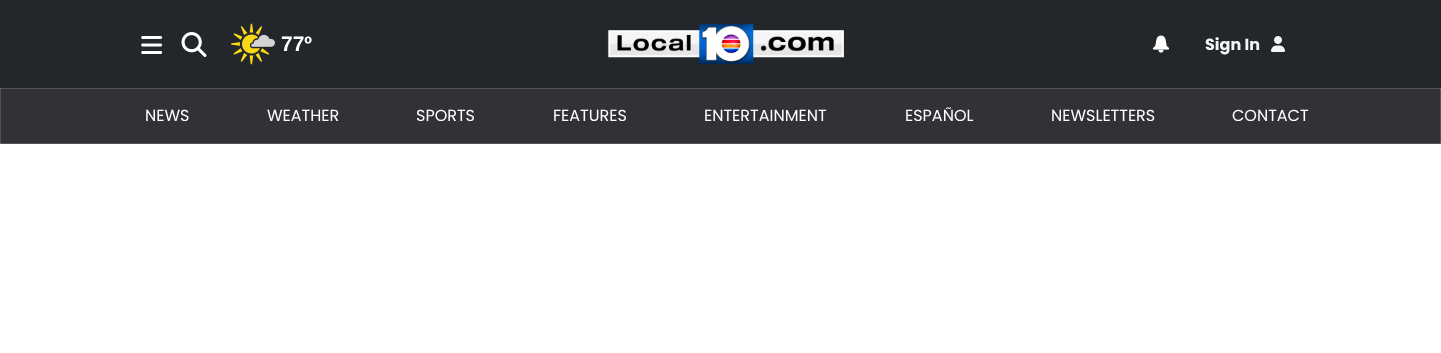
<!DOCTYPE html>
<meta charset="utf-8">
<style>body { margin: 0 } canvas { display: block }</style>
<canvas id="canvas" width="1441" height="353"></canvas>
<img id="img1" src="img_01.png" hidden>
<img id="img2" src="img_02.png" hidden>
<img id="img3" src="img_03.png" hidden>
<img id="img4" src="img_04.png" hidden>
<img id="img5" src="img_05.png" hidden>
<img id="img6" src="img_06.png" hidden>
<script>
window.onload = function () {
	const canvas = document.getElementById("canvas");
	const ctx = canvas.getContext("2d");
	ctx.miterLimit = 4;
	ctx.fontKerning = "normal";
	function txt(s, x, y) {
		ctx.fillText(s, x, y);
	}
	function fill(x, y, w, h) {
		ctx.fillRect(x, y, w, h);
	}
	function img(id, x, y, w, h) {
		ctx.drawImage(document.getElementById(id), x, y, w, h);
	}

	ctx.fillStyle = "#FFFFFF";
	fill(0, 0, 1441, 353);
	ctx.fillStyle = "#23262B";
	fill(0, 0, 1441, 88);
	img("img1", 141, 36, 22, 18);
	img("img2", 181, 32, 26, 25);
	img("img3", 231, 23, 44, 42);
	img("img4", 607, 23, 237, 41);
	img("img5", 1152, 35, 18, 18);
	img("img6", 1271, 36, 14, 16);
	ctx.fillStyle = "#303236";
	ctx.beginPath();
	ctx.rect(0.5, 88.5, 1440, 55);
	ctx.fill();
	ctx.strokeStyle = "#52525B";
	ctx.stroke();
	ctx.font = "bold 21px Liberation Sans";
	ctx.fillStyle = "#FFFFFF";
	txt("77º", 281, 51);
	ctx.font = "bold 16px Poppins";
	ctx.fillStyle = "#F1F5F9";
	txt("Sign In", 1205, 50);
	ctx.font = "16px Poppins";
	ctx.fillStyle = "#FFFFFF";
	txt("NEWS", 145, 121);
	txt("WEATHER", 267, 121);
	txt("SPORTS", 416, 121);
	txt("FEATURES", 553, 121);
	txt("ENTERTAINMENT", 704, 121);
	txt("ESPAÑOL", 905, 121);
	txt("NEWSLETTERS", 1051, 121);
	txt("CONTACT", 1232, 121);
};
</script>
